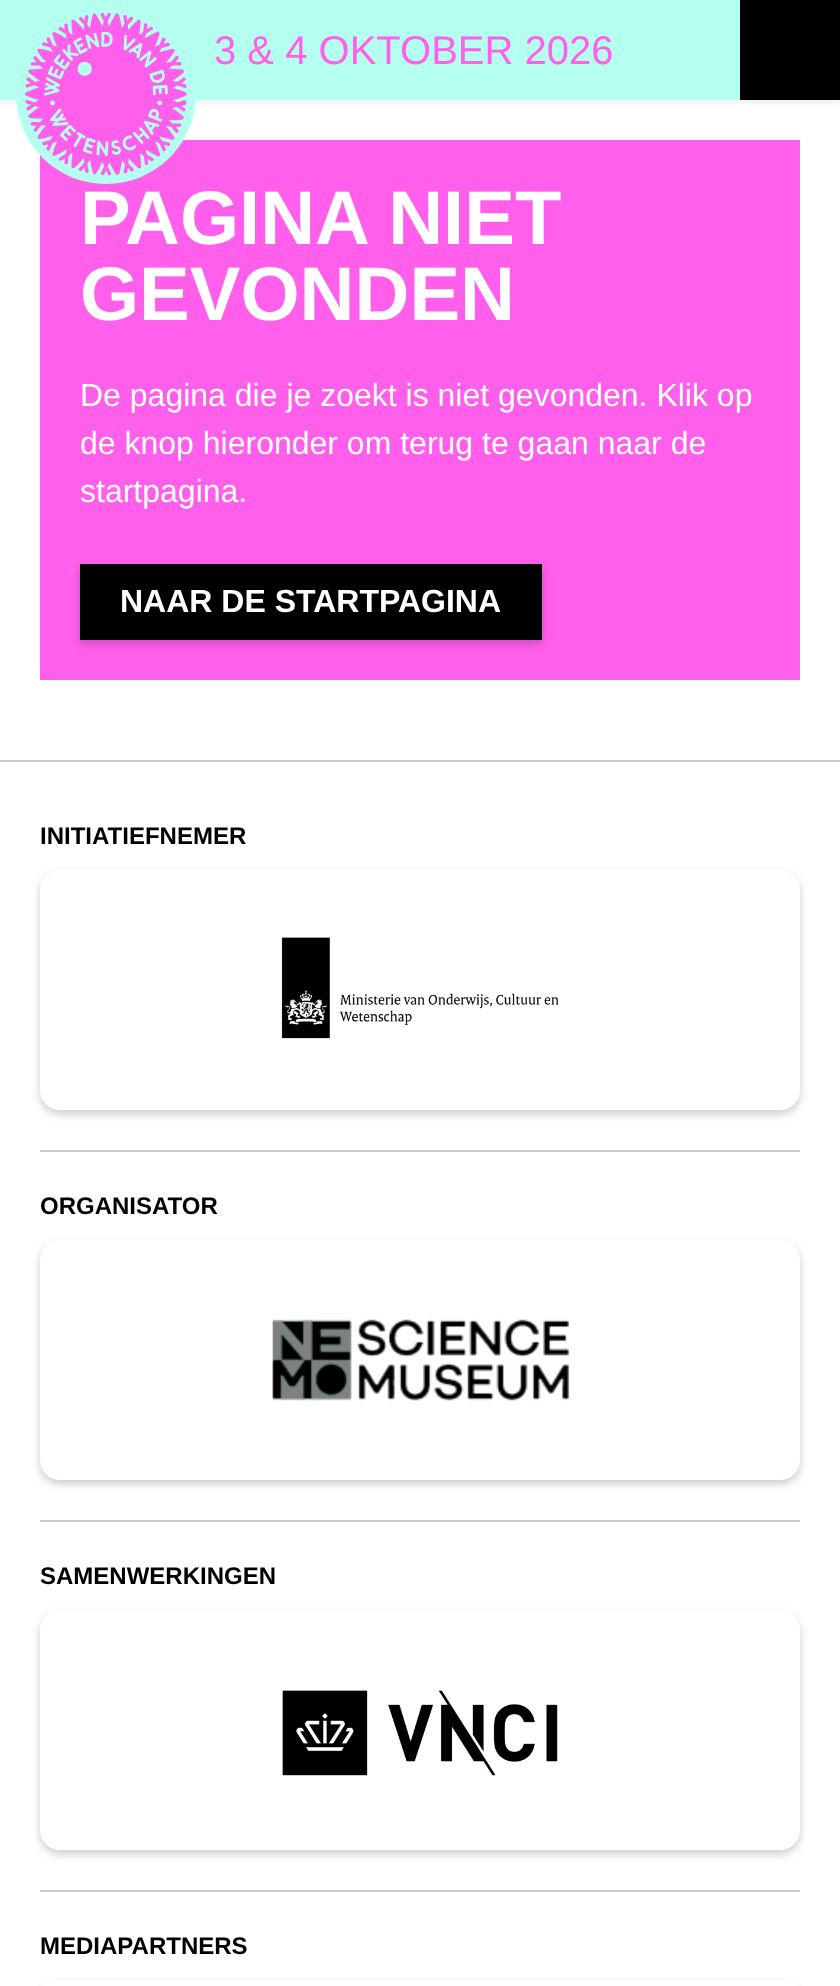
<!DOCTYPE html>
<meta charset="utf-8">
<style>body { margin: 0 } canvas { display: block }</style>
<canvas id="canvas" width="840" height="1986"></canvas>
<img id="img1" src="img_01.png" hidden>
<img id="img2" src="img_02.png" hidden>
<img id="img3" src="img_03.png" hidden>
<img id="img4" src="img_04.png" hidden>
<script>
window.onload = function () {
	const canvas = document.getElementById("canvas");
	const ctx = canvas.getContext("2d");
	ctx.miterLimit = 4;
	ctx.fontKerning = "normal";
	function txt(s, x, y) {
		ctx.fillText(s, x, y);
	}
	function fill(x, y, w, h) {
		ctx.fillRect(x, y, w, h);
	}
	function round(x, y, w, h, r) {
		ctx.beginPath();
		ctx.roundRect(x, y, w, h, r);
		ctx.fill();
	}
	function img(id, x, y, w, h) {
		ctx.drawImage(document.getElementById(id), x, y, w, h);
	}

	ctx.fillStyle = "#FFFFFF";
	fill(0, 0, 840, 1986);
	ctx.fillStyle = "rgba(0, 0, 0, 0.05)";
	ctx.filter = "blur(2px)";
	ctx.beginPath();
	ctx.rect(0, 4, 840, 100);
	ctx.fill();
	ctx.filter = "none";
	ctx.fillStyle = "#B4FFEF";
	fill(0, 0, 740, 100);
	ctx.fillStyle = "#FF5FEB";
	fill(40, 140, 760, 540);
	ctx.fillStyle = "#B4FFEF";
	ctx.beginPath();
	ctx.arc(106, 74, 90, 0, Math.PI * 2);
	ctx.fill();
	img("img1", 16, 12, 180, 172);
	ctx.fillStyle = "#000000";
	fill(740, 0, 100, 100);
	ctx.fillStyle = "rgba(0, 0, 0, 0.2)";
	ctx.filter = "blur(4px)";
	ctx.beginPath();
	ctx.rect(80, 568, 462, 76);
	ctx.fill();
	ctx.filter = "none";
	ctx.fillStyle = "#000000";
	fill(80, 564, 462, 76);
	ctx.fillStyle = "#CCCCCC";
	fill(0, 760, 840, 2);
	fill(40, 1150, 760, 2);
	ctx.fillStyle = "rgba(0, 0, 0, 0.2)";
	ctx.filter = "blur(4px)";
	ctx.beginPath();
	ctx.roundRect(40, 874, 760, 240, 20);
	ctx.fill();
	ctx.filter = "none";
	ctx.fillStyle = "#FFFFFF";
	round(40, 870, 760, 240, 20);
	img("img2", 281, 937, 278, 102);
	ctx.fillStyle = "#CCCCCC";
	fill(40, 1520, 760, 2);
	ctx.fillStyle = "rgba(0, 0, 0, 0.2)";
	ctx.filter = "blur(4px)";
	ctx.beginPath();
	ctx.roundRect(40, 1244, 760, 240, 20);
	ctx.fill();
	ctx.filter = "none";
	ctx.fillStyle = "#FFFFFF";
	round(40, 1240, 760, 240, 20);
	img("img3", 272, 1319, 298, 82);
	ctx.fillStyle = "#CCCCCC";
	fill(40, 1890, 760, 2);
	ctx.fillStyle = "rgba(0, 0, 0, 0.2)";
	ctx.filter = "blur(4px)";
	ctx.beginPath();
	ctx.roundRect(40, 1614, 760, 240, 20);
	ctx.fill();
	ctx.filter = "none";
	ctx.fillStyle = "#FFFFFF";
	round(40, 1610, 760, 240, 20);
	img("img4", 282, 1690, 276, 86);
	ctx.fillStyle = "rgba(0, 0, 0, 0.2)";
	ctx.filter = "blur(4px)";
	ctx.beginPath();
	ctx.roundRect(40, 1984, 760, 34, 20);
	ctx.fill();
	ctx.filter = "none";
	ctx.fillStyle = "#FFFFFF";
	round(40, 1980, 760, 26, 20);
	ctx.font = "40px Liberation Sans";
	ctx.fillStyle = "#FF5FEB";
	txt("3 & 4 OKTOBER 2026", 214, 64);
	ctx.font = "bold 76px Liberation Sans";
	ctx.fillStyle = "#FFFFFF";
	txt("PAGINA NIET", 80, 244);
	txt("GEVONDEN", 80, 320);
	ctx.font = "32px Liberation Sans";
	txt("De pagina die je zoekt is niet gevonden. Klik op", 80, 406);
	txt("de knop hieronder om terug te gaan naar de", 80, 454);
	txt("startpagina.", 80, 502);
	ctx.font = "bold 32px Liberation Sans";
	txt("NAAR DE STARTPAGINA", 120, 612);
	ctx.font = "bold 24px Liberation Sans";
	ctx.fillStyle = "#000000";
	txt("INITIATIEFNEMER", 40, 844);
	txt("ORGANISATOR", 40, 1214);
	txt("SAMENWERKINGEN", 40, 1584);
	txt("MEDIAPARTNERS", 40, 1954);
};
</script>
